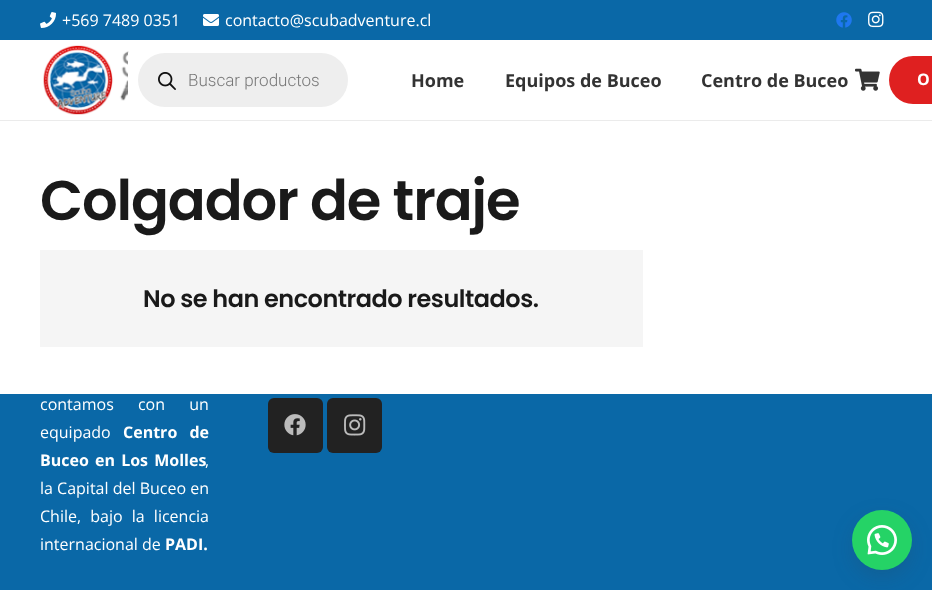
<!DOCTYPE html>
<meta charset="utf-8">
<style>body { margin: 0 } canvas { display: block }</style>
<canvas id="canvas" width="932" height="590"></canvas>
<img id="img1" src="img_01.png" hidden>
<img id="img2" src="img_02.png" hidden>
<img id="img3" src="img_03.png" hidden>
<img id="img4" src="img_04.png" hidden>
<img id="img5" src="img_05.png" hidden>
<img id="img6" src="img_06.png" hidden>
<img id="img7" src="img_07.png" hidden>
<img id="img8" src="img_08.png" hidden>
<img id="img9" src="img_09.png" hidden>
<img id="img10" src="img_10.png" hidden>
<script>
window.onload = function () {
	const canvas = document.getElementById("canvas");
	const ctx = canvas.getContext("2d");
	ctx.miterLimit = 4;
	ctx.fontKerning = "normal";
	function txt(s, x, y) {
		ctx.fillText(s, x, y);
	}
	function fill(x, y, w, h) {
		ctx.fillRect(x, y, w, h);
	}
	function round(x, y, w, h, r) {
		ctx.beginPath();
		ctx.roundRect(x, y, w, h, r);
		ctx.fill();
	}
	function img(id, x, y, w, h) {
		ctx.drawImage(document.getElementById(id), x, y, w, h);
	}

	ctx.fillStyle = "#0A68A7";
	fill(0, 0, 932, 590);
	ctx.fillStyle = "#FFFFFF";
	fill(0, 40, 932, 354);
	img("img1", 40, 12, 16, 16);
	img("img2", 203, 14, 16, 12);
	img("img3", 836, 12, 16, 16);
	img("img4", 868, 11, 16, 17);
	ctx.fillStyle = "#EBEBEB";
	fill(0, 120, 932, 1);
	img("img5", 43, 45, 86, 70);
	ctx.fillStyle = "#FFFFFF";
	round(128, 43, 230, 74, 10);
	ctx.fillStyle = "#EEEEEE";
	round(138, 53, 210, 54, 27);
	img("img6", 158, 72, 18, 18);
	img("img7", 855, 68, 25, 23);
	ctx.fillStyle = "#DF2020";
	round(889, 56, 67, 48, 24);
	ctx.fillStyle = "#F5F5F5";
	fill(40, 250, 603, 97);
	ctx.fillStyle = "#222222";
	round(268, 398, 55, 55, 6);
	img("img8", 284, 414, 22, 22);
	round(327, 398, 55, 55, 6);
	img("img9", 344, 414, 22, 22);
	ctx.fillStyle = "rgba(45, 62, 79, 0.3)";
	ctx.filter = "blur(12.5px)";
	ctx.beginPath();
	ctx.roundRect(857, 523, 50, 50, 25);
	ctx.fill();
	ctx.filter = "none";
	ctx.fillStyle = "#25D366";
	ctx.beginPath();
	ctx.arc(882, 540, 30, 0, Math.PI * 2);
	ctx.fill();
	img("img10", 867, 525, 30, 30);
	ctx.font = "16px Open Sans";
	ctx.fillStyle = "#FFFFFF";
	txt("+569 7489 0351", 62, 26);
	txt("contacto@scubadventure.cl", 225, 26);
	ctx.font = "300 17px Roboto";
	ctx.fillStyle = "#777777";
	txt("Buscar productos", 188, 86);
	ctx.font = "bold 18px Open Sans";
	ctx.fillStyle = "#333333";
	txt("Home", 411, 87);
	txt("Equipos de Buceo", 505, 87);
	txt("Centro de Buceo", 701, 87);
	ctx.font = "bold 16px Open Sans";
	ctx.fillStyle = "#FFFFFF";
	txt("O", 917, 85);
	ctx.letterSpacing = "-1.1px";
	ctx.font = "600 56px Poppins";
	ctx.fillStyle = "#1A1A1A";
	txt("Colgador de traje", 40, 220);
	ctx.letterSpacing = "-0.5px";
	ctx.font = "600 24px Poppins";
	txt("No se han encontrado resultados.", 143, 307);
	ctx.letterSpacing = "0px";
	ctx.wordSpacing = "20px";
	ctx.font = "16px Open Sans";
	ctx.fillStyle = "#FFFFFF";
	txt("contamos con un", 40, 410);
	ctx.wordSpacing = "0px";
	txt("equipado", 40, 438);
	ctx.wordSpacing = "8px";
	ctx.font = "bold 16px Open Sans";
	txt("Centro de", 123, 438);
	ctx.wordSpacing = "2px";
	txt("Buceo en Los Molles", 40, 466);
	ctx.wordSpacing = "0px";
	ctx.font = "16px Open Sans";
	txt(",", 205, 466);
	txt("la Capital del Buceo en", 40, 494);
	ctx.wordSpacing = "5px";
	txt("Chile, bajo la licencia", 40, 522);
	ctx.wordSpacing = "0px";
	txt("internacional de", 40, 550);
	ctx.font = "bold 16px Open Sans";
	txt("PADI.", 165, 550);
};
</script>
